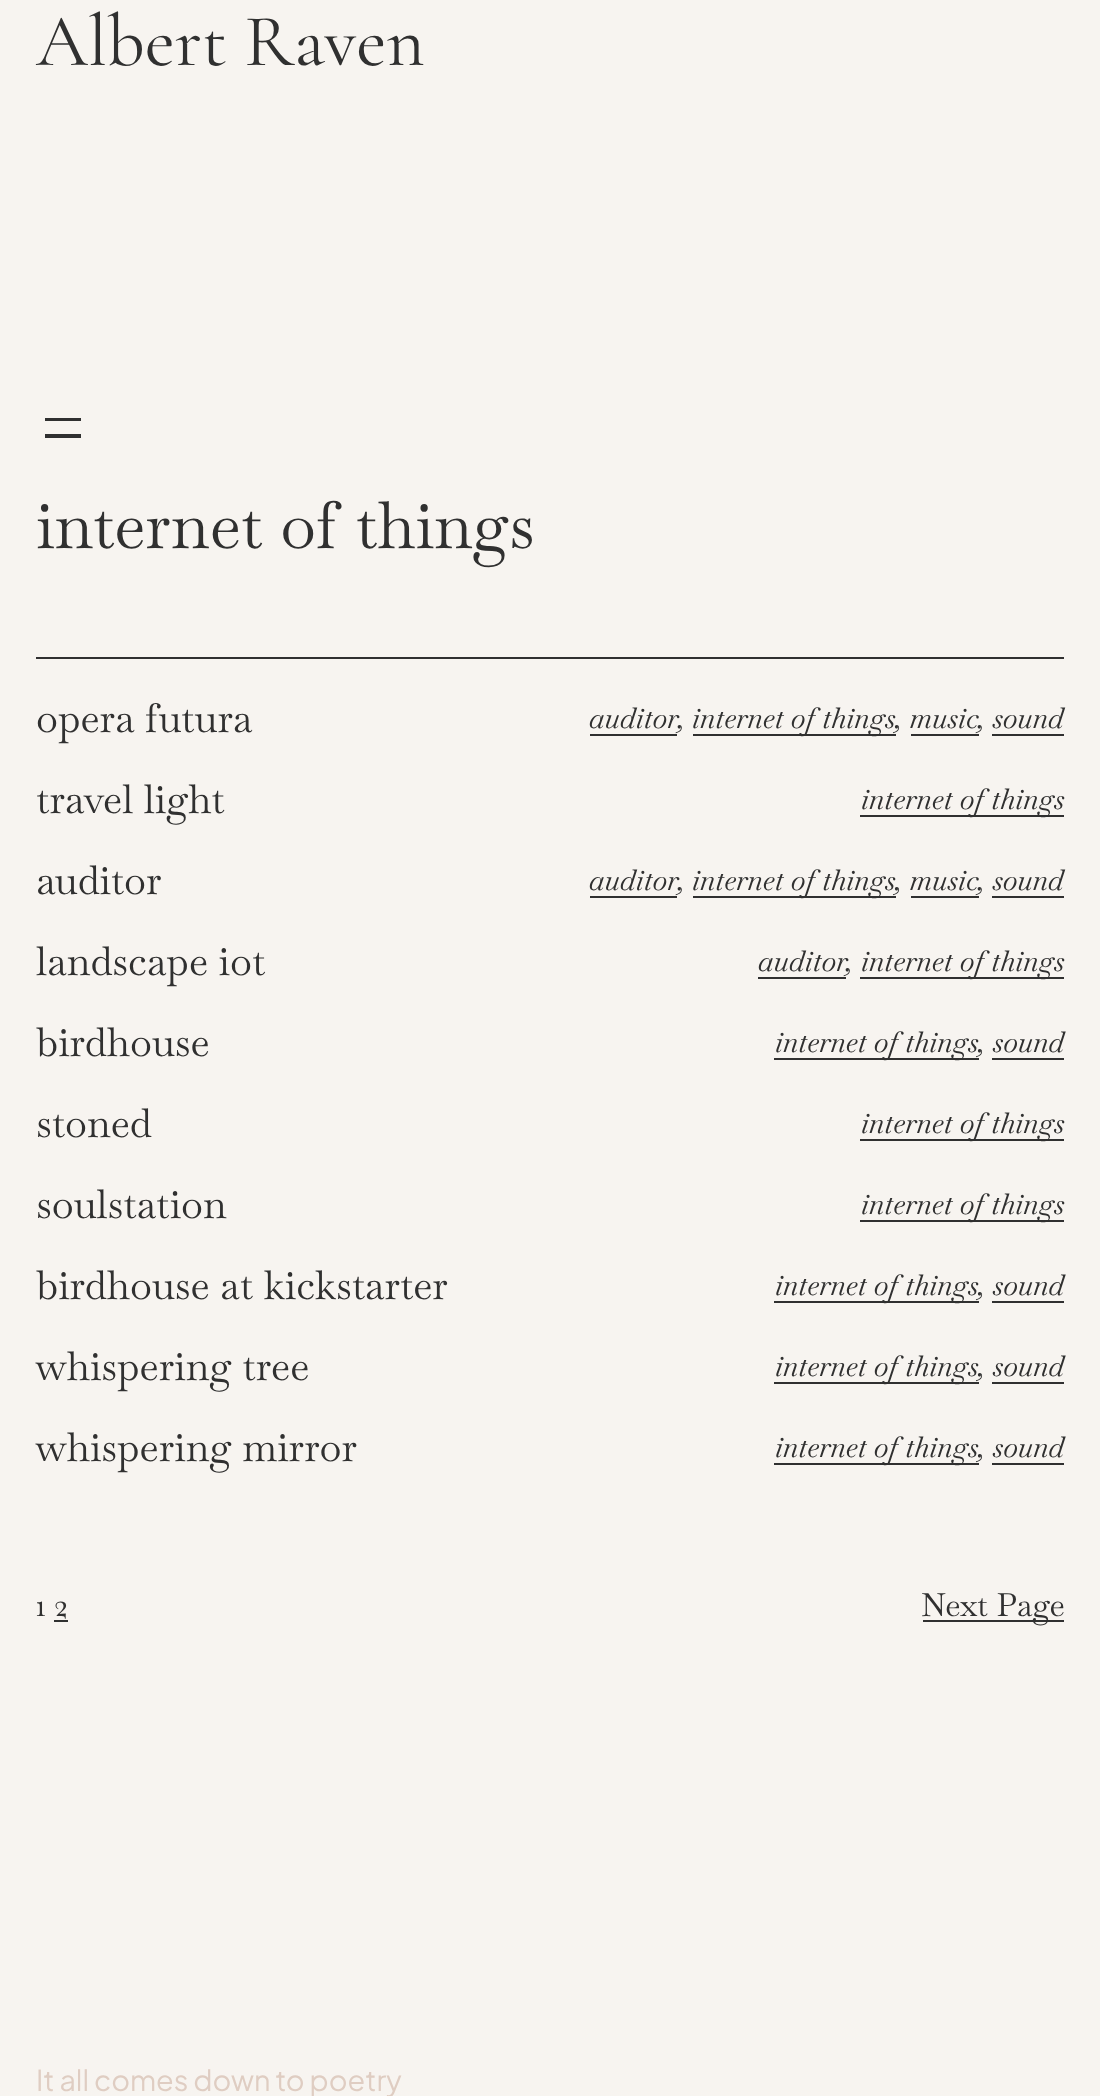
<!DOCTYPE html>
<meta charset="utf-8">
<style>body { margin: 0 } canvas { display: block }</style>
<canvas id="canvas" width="1100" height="2096"></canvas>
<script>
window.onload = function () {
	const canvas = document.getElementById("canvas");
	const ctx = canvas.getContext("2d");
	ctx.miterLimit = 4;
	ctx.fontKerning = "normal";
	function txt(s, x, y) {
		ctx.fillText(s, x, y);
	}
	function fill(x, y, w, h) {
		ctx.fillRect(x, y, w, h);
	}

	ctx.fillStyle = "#F7F4F0";
	fill(0, 0, 1100, 2096);
	ctx.fillStyle = "#303030";
	fill(45, 418, 36, 3);
	fill(45, 434, 36, 4);
	fill(36, 657, 1028, 2);
	fill(590, 734, 87, 2);
	fill(693, 734, 203, 2);
	fill(911, 734, 68, 2);
	fill(992, 734, 72, 2);
	fill(860, 815, 204, 2);
	fill(590, 896, 87, 2);
	fill(693, 896, 203, 2);
	fill(911, 896, 68, 2);
	fill(992, 896, 72, 2);
	fill(758, 977, 88, 2);
	fill(860, 977, 204, 2);
	fill(774, 1058, 205, 2);
	fill(992, 1058, 72, 2);
	fill(860, 1139, 204, 2);
	fill(860, 1220, 204, 2);
	fill(774, 1301, 205, 2);
	fill(992, 1301, 72, 2);
	fill(774, 1382, 205, 2);
	fill(992, 1382, 72, 2);
	fill(774, 1463, 205, 2);
	fill(992, 1463, 72, 2);
	fill(54, 1620, 14, 2);
	fill(923, 1620, 141, 2);
	ctx.font = "74px Cormorant Garamond";
	txt("Albert Raven", 36, 65);
	ctx.font = "65.25px Baskervville";
	txt("internet of things", 36, 548);
	ctx.font = "40px Baskervville";
	txt("opera futura", 36, 732);
	ctx.font = "italic 28.75px Baskervville";
	txt("auditor", 589, 728);
	txt("internet of things, music", 692, 728);
	txt(", sound", 978, 728);
	txt(",", 678, 728);
	ctx.font = "40px Baskervville";
	txt("travel light", 36, 813);
	ctx.font = "italic 28.75px Baskervville";
	txt("internet of things", 861, 809);
	ctx.font = "40px Baskervville";
	txt("auditor", 36, 894);
	ctx.font = "italic 28.75px Baskervville";
	txt("auditor", 589, 890);
	txt("internet of things, music", 692, 890);
	txt(", sound", 978, 890);
	txt(",", 678, 890);
	ctx.font = "40px Baskervville";
	txt("landscape iot", 36, 975);
	ctx.font = "italic 28.75px Baskervville";
	txt("auditor", 758, 971);
	txt("internet of things", 861, 971);
	txt(",", 846, 971);
	ctx.font = "40px Baskervville";
	txt("birdhouse", 36, 1056);
	ctx.font = "italic 28.75px Baskervville";
	txt("internet of things, sound", 775, 1052);
	ctx.font = "40px Baskervville";
	txt("stoned", 36, 1137);
	ctx.font = "italic 28.75px Baskervville";
	txt("internet of things", 861, 1133);
	ctx.font = "40px Baskervville";
	txt("soulstation", 36, 1218);
	ctx.font = "italic 28.75px Baskervville";
	txt("internet of things", 861, 1214);
	ctx.font = "40px Baskervville";
	txt("birdhouse at kickstarter", 36, 1299);
	ctx.font = "italic 28.75px Baskervville";
	txt("internet of things, sound", 775, 1295);
	ctx.font = "40px Baskervville";
	txt("whispering tree", 36, 1380);
	ctx.font = "italic 28.75px Baskervville";
	txt("internet of things, sound", 775, 1376);
	ctx.font = "40px Baskervville";
	txt("whispering mirror", 36, 1461);
	ctx.font = "italic 28.75px Baskervville";
	txt("internet of things, sound", 775, 1457);
	ctx.font = "32px Baskervville";
	txt("1 2", 36, 1616);
	txt("Next Page", 921, 1616);
	ctx.font = "28.75px Plus Jakarta Sans";
	ctx.fillStyle = "#DFCDC2";
	txt("It all comes down to poetry", 36, 2091);
};
</script>
